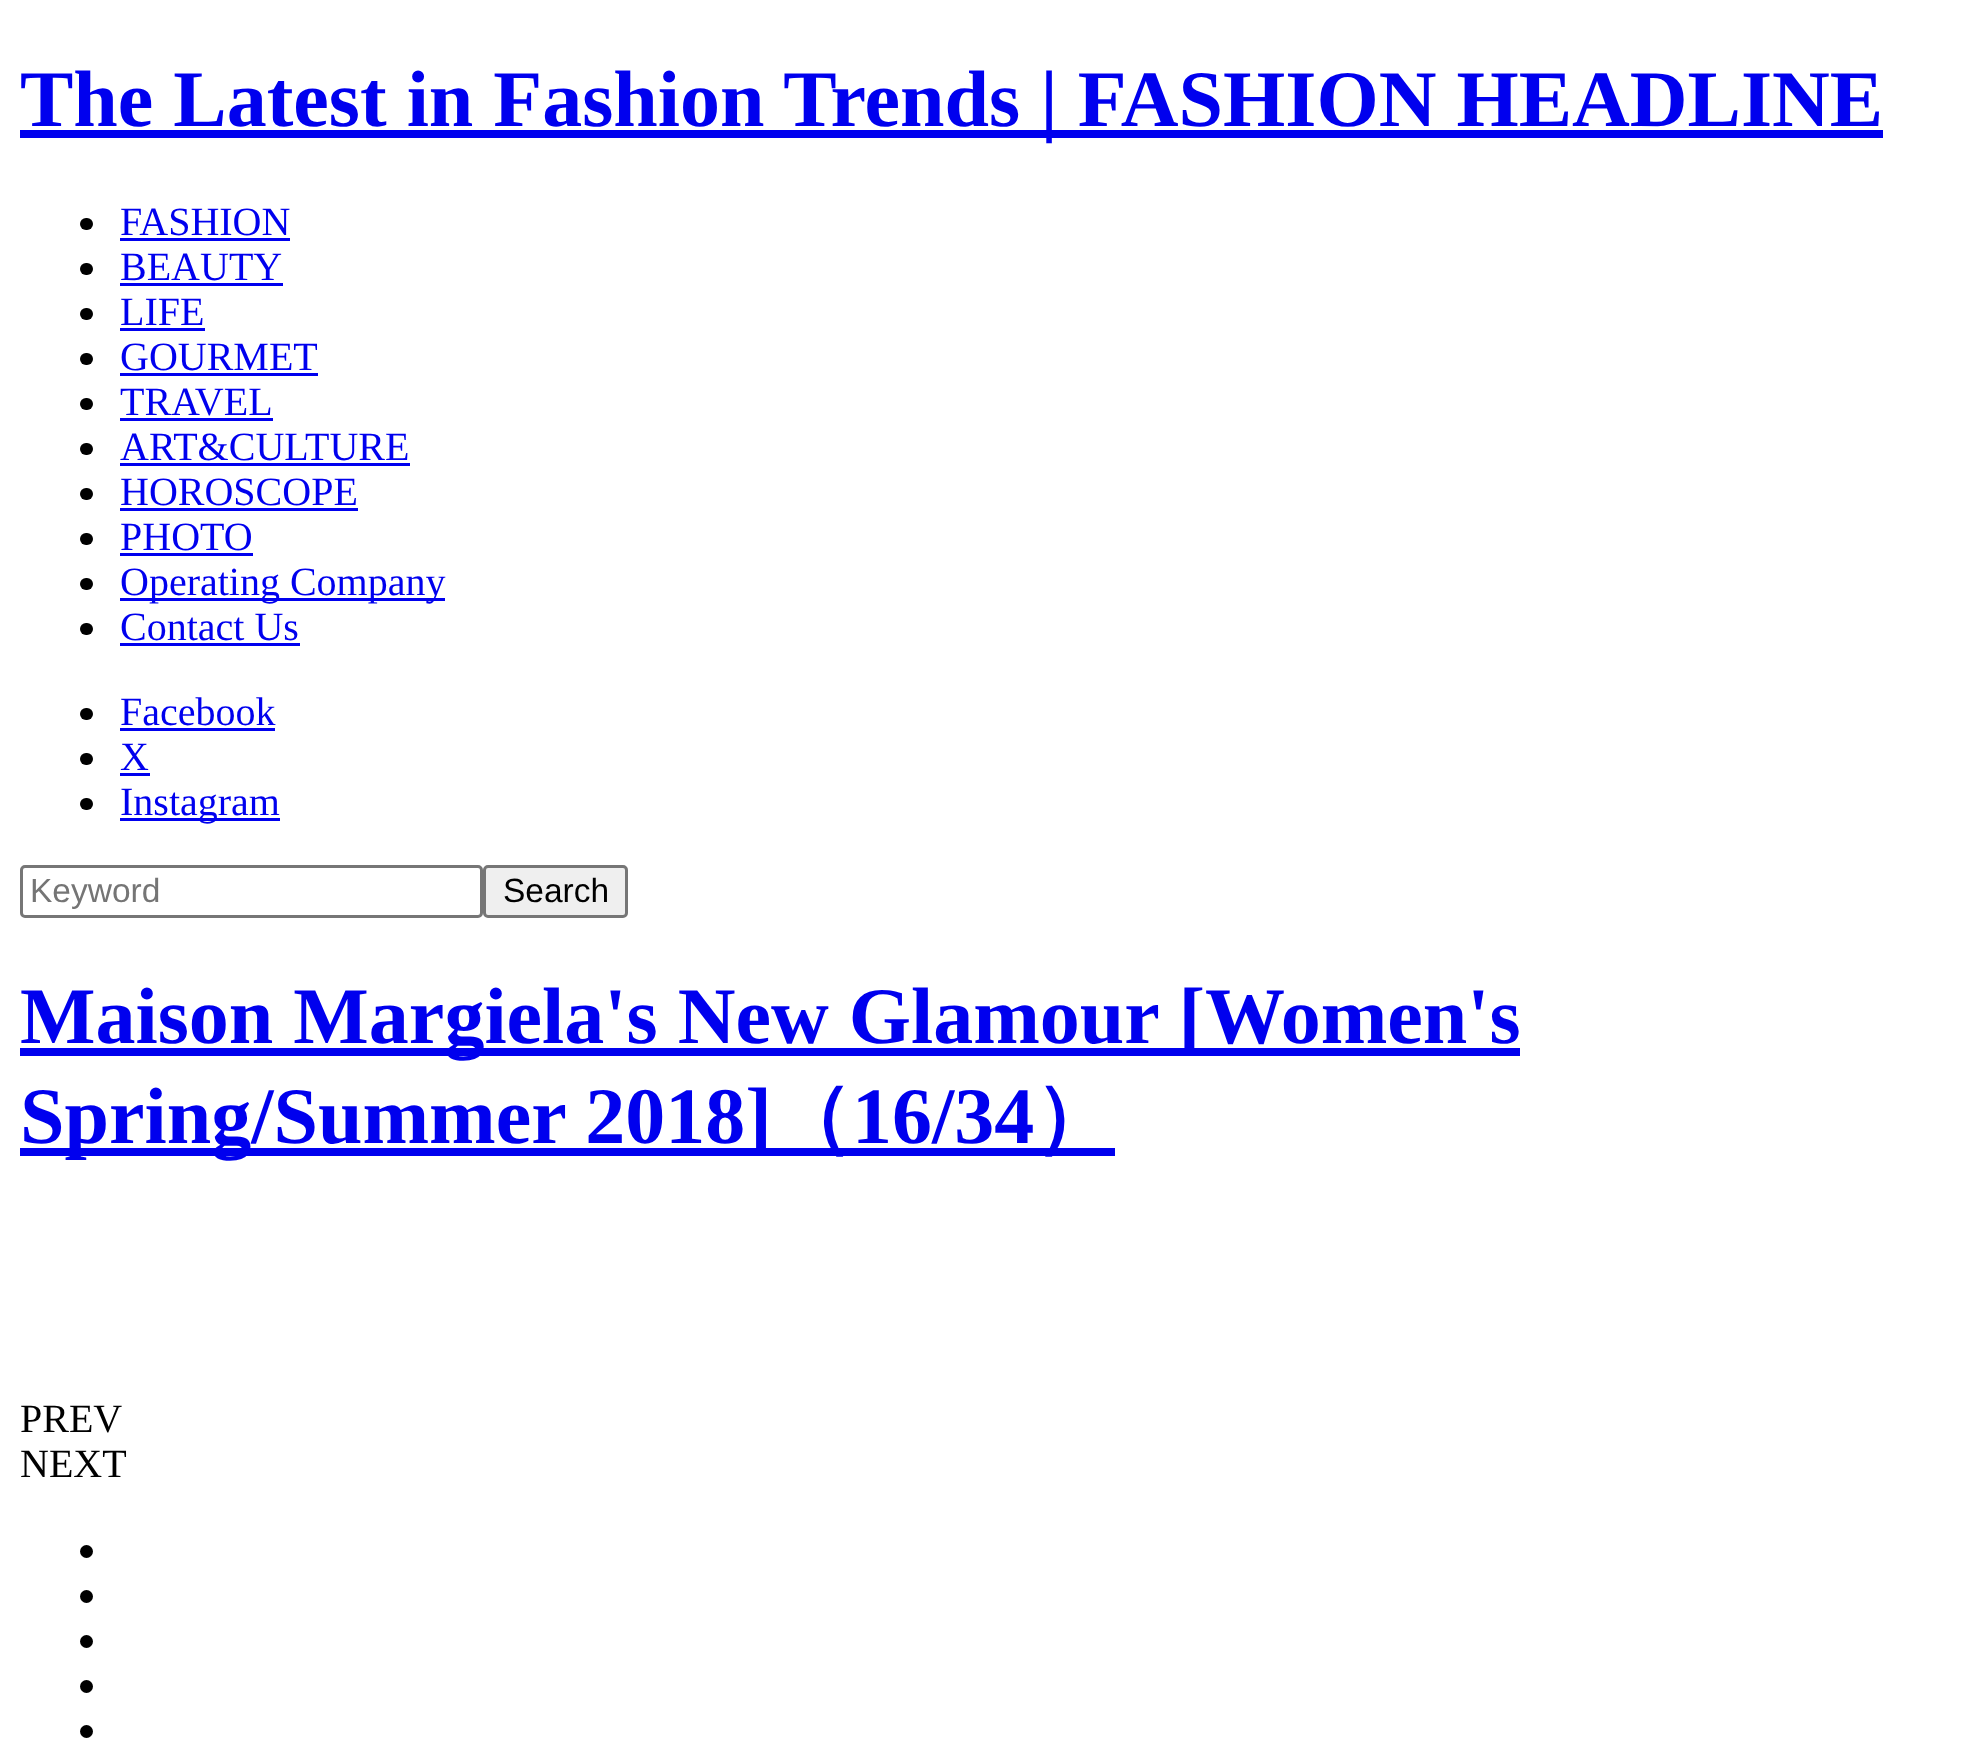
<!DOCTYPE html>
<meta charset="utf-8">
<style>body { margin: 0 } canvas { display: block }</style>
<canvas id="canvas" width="1967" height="1762"></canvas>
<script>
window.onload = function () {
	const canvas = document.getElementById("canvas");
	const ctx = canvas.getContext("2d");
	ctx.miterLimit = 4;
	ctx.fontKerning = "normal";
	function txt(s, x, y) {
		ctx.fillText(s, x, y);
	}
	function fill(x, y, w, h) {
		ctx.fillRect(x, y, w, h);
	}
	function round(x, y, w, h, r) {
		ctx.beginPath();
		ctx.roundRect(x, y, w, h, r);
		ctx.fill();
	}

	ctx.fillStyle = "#FFFFFF";
	fill(0, 0, 1967, 1762);
	ctx.fillStyle = "#0000EE";
	fill(20, 130, 1863, 8);
	ctx.fillStyle = "#000000";
	round(80, 218, 13, 12, 6);
	ctx.fillStyle = "#0000EE";
	fill(120, 238, 170, 3);
	ctx.fillStyle = "#000000";
	round(80, 263, 13, 12, 6);
	ctx.fillStyle = "#0000EE";
	fill(120, 283, 163, 3);
	ctx.fillStyle = "#000000";
	round(80, 308, 13, 12, 6);
	ctx.fillStyle = "#0000EE";
	fill(120, 328, 85, 3);
	ctx.fillStyle = "#000000";
	round(80, 353, 13, 12, 6);
	ctx.fillStyle = "#0000EE";
	fill(120, 373, 198, 3);
	ctx.fillStyle = "#000000";
	round(80, 398, 13, 12, 6);
	ctx.fillStyle = "#0000EE";
	fill(120, 418, 153, 3);
	ctx.fillStyle = "#000000";
	round(80, 443, 13, 12, 6);
	ctx.fillStyle = "#0000EE";
	fill(120, 463, 290, 3);
	ctx.fillStyle = "#000000";
	round(80, 488, 13, 12, 6);
	ctx.fillStyle = "#0000EE";
	fill(120, 508, 238, 3);
	ctx.fillStyle = "#000000";
	round(80, 533, 13, 12, 6);
	ctx.fillStyle = "#0000EE";
	fill(120, 553, 133, 3);
	ctx.fillStyle = "#000000";
	round(80, 578, 13, 12, 6);
	ctx.fillStyle = "#0000EE";
	fill(120, 598, 325, 3);
	ctx.fillStyle = "#000000";
	round(80, 623, 13, 12, 6);
	ctx.fillStyle = "#0000EE";
	fill(120, 643, 180, 3);
	ctx.fillStyle = "#000000";
	round(80, 708, 13, 12, 6);
	ctx.fillStyle = "#0000EE";
	fill(120, 728, 155, 3);
	ctx.fillStyle = "#000000";
	round(80, 753, 13, 12, 6);
	ctx.fillStyle = "#0000EE";
	fill(120, 773, 30, 3);
	ctx.fillStyle = "#000000";
	round(80, 798, 13, 12, 6);
	ctx.fillStyle = "#0000EE";
	fill(120, 818, 160, 3);
	ctx.beginPath();
	ctx.roundRect(21.5, 866.5, 460, 50, 3.5);
	ctx.strokeStyle = "#767676";
	ctx.lineWidth = 3;
	ctx.stroke();
	ctx.fillStyle = "#EFEFEF";
	ctx.beginPath();
	ctx.roundRect(484.5, 866.5, 142, 50, 3.5);
	ctx.fill();
	ctx.stroke();
	ctx.fillStyle = "#0000EE";
	fill(20, 1048, 1500, 8);
	fill(20, 1148, 1095, 8);
	ctx.fillStyle = "#000000";
	ctx.beginPath();
	ctx.arc(86.5, 1551.5, 6.5, 0, Math.PI * 2);
	ctx.fill();
	ctx.beginPath();
	ctx.arc(86.5, 1596.5, 6.5, 0, Math.PI * 2);
	ctx.fill();
	ctx.beginPath();
	ctx.arc(86.5, 1641.5, 6.5, 0, Math.PI * 2);
	ctx.fill();
	ctx.beginPath();
	ctx.arc(86.5, 1686.5, 6.5, 0, Math.PI * 2);
	ctx.fill();
	ctx.beginPath();
	ctx.arc(86.5, 1731.5, 6.5, 0, Math.PI * 2);
	ctx.fill();
	ctx.font = "bold 80px Liberation Serif";
	ctx.fillStyle = "#0000EE";
	txt("The Latest in Fashion Trends | FASHION HEADLINE", 20, 126);
	ctx.font = "40px Liberation Serif";
	txt("FASHION", 120, 235);
	txt("BEAUTY", 120, 280);
	txt("LIFE", 120, 325);
	txt("GOURMET", 120, 370);
	txt("TRAVEL", 120, 415);
	txt("ART&CULTURE", 120, 460);
	txt("HOROSCOPE", 120, 505);
	txt("PHOTO", 120, 550);
	txt("Operating Company", 120, 595);
	txt("Contact Us", 120, 640);
	txt("Facebook", 120, 725);
	txt("X", 120, 770);
	txt("Instagram", 120, 815);
	ctx.font = "33.5px Liberation Sans";
	ctx.fillStyle = "#757575";
	txt("Keyword", 30, 902);
	ctx.fillStyle = "#000000";
	txt("Search", 503, 902);
	ctx.font = "bold 80px Liberation Serif";
	ctx.fillStyle = "#0000EE";
	txt("Maison Margiela's New Glamour [Women's", 20, 1043);
	txt("Spring/Summer 2018]", 20, 1143);
	ctx.font = "bold 80px WenQuanYi Zen Hei";
	txt("（", 772, 1143);
	ctx.font = "bold 80px Liberation Serif";
	txt("16/34", 852, 1143);
	ctx.font = "bold 80px WenQuanYi Zen Hei";
	txt("）", 1034, 1143);
	ctx.font = "40px Liberation Serif";
	ctx.fillStyle = "#000000";
	txt("PREV", 20, 1432);
	txt("NEXT", 20, 1477);
};
</script>
